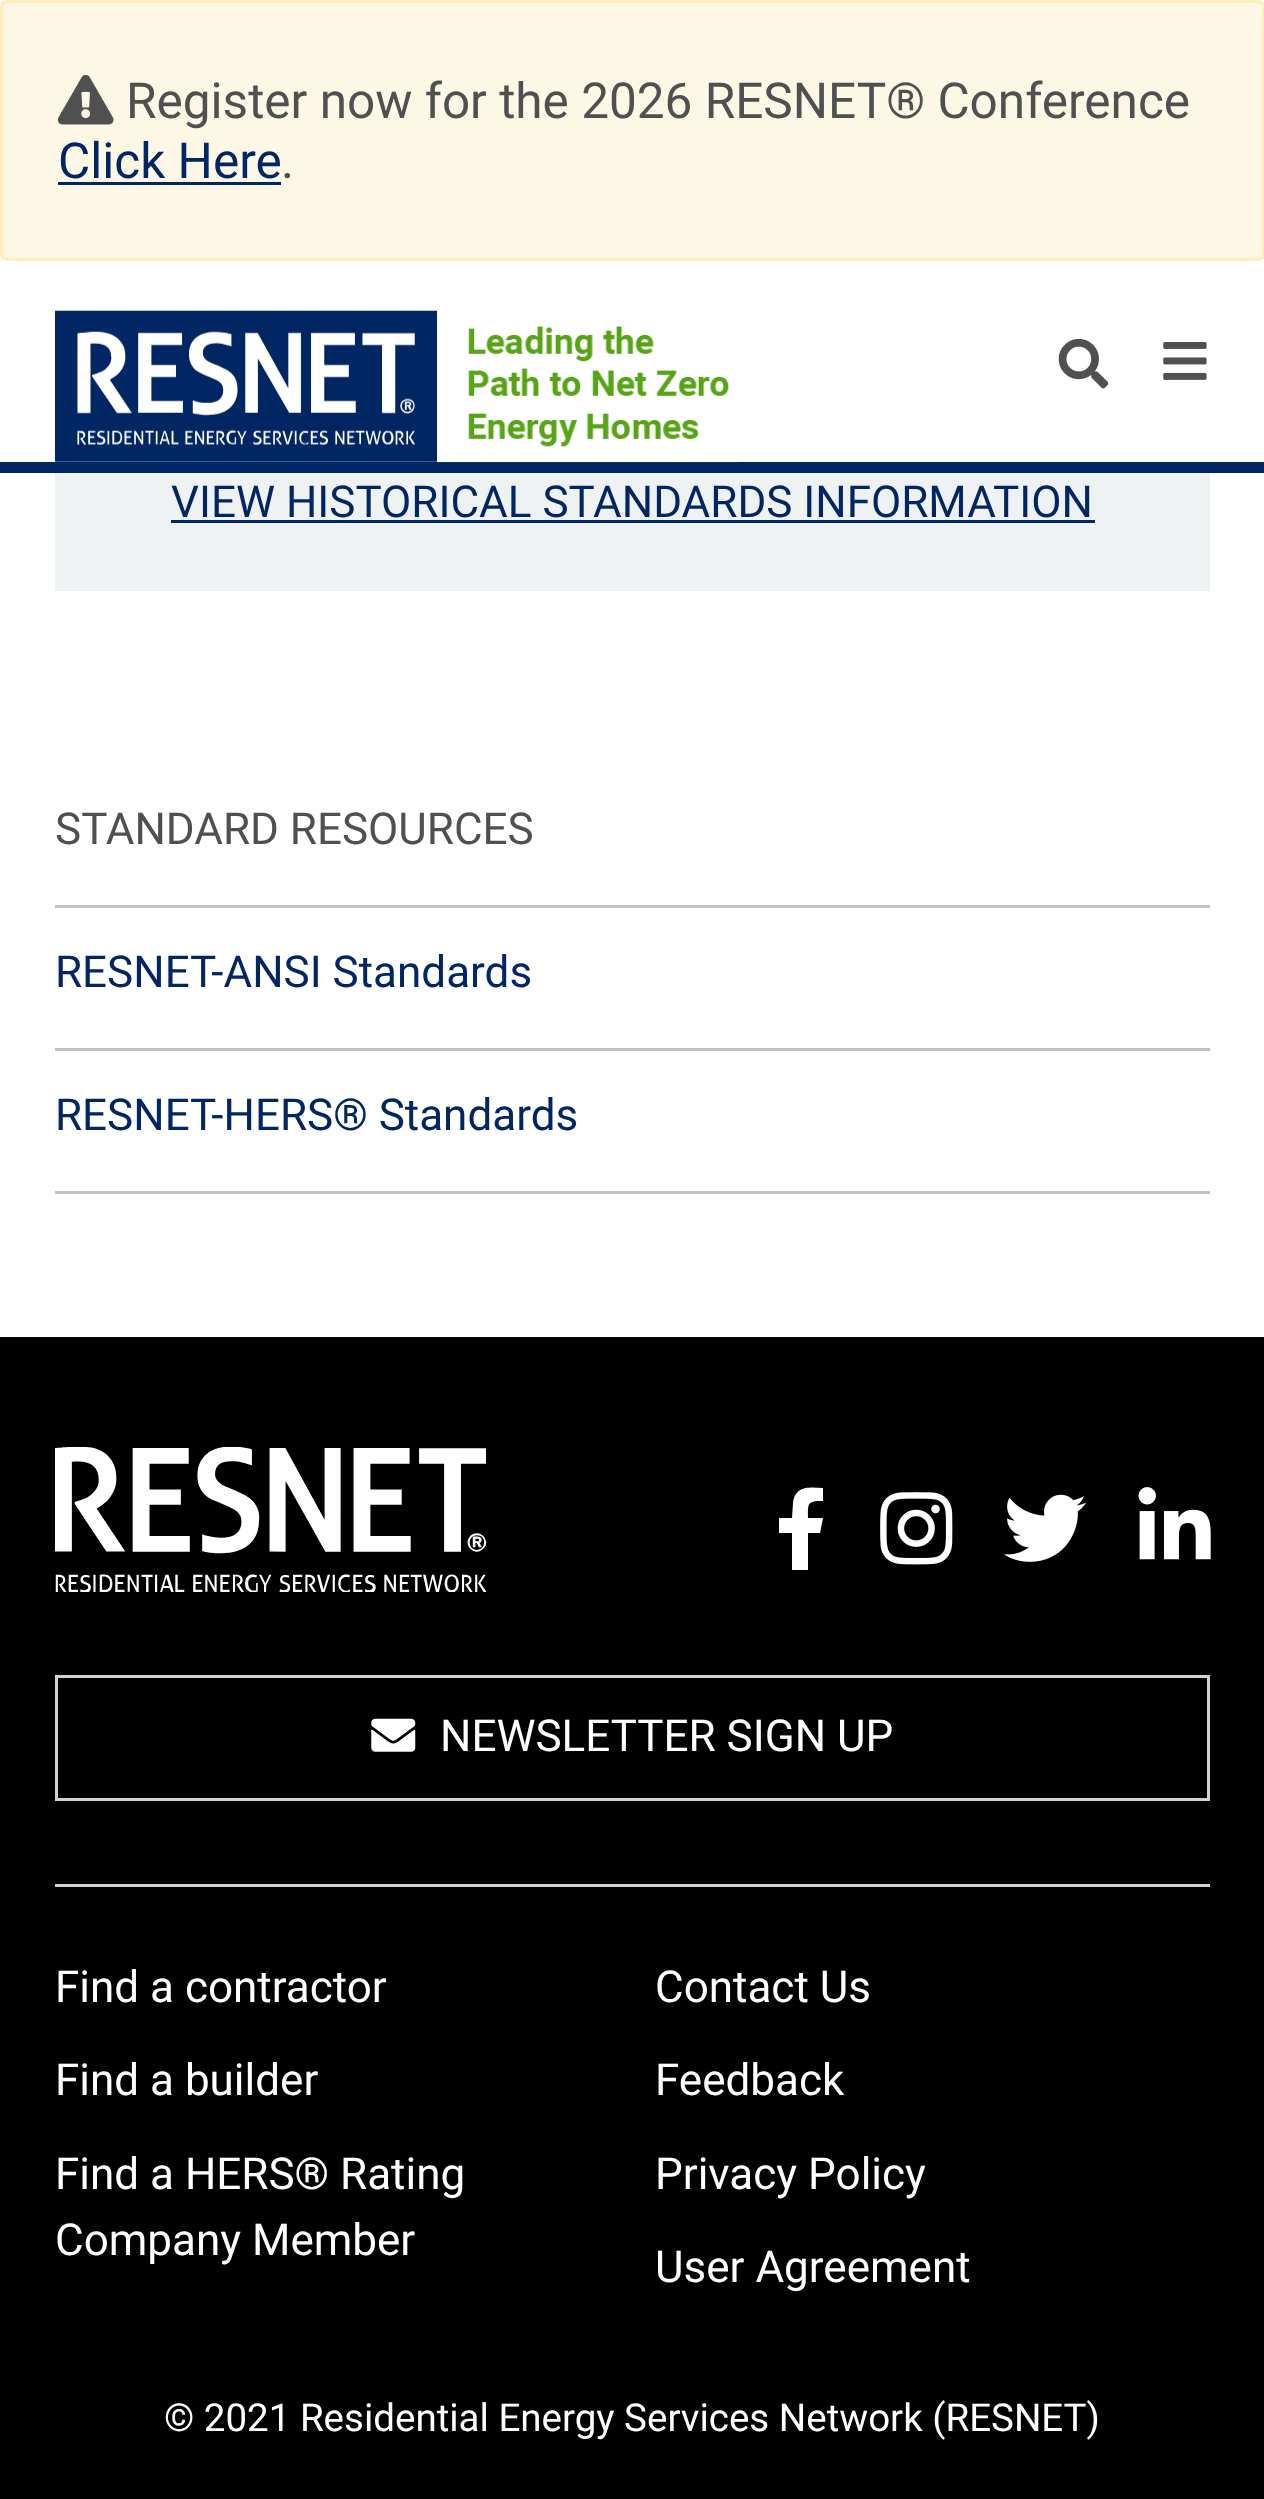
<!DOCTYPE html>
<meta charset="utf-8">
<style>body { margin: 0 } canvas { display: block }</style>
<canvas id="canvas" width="1264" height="2499"></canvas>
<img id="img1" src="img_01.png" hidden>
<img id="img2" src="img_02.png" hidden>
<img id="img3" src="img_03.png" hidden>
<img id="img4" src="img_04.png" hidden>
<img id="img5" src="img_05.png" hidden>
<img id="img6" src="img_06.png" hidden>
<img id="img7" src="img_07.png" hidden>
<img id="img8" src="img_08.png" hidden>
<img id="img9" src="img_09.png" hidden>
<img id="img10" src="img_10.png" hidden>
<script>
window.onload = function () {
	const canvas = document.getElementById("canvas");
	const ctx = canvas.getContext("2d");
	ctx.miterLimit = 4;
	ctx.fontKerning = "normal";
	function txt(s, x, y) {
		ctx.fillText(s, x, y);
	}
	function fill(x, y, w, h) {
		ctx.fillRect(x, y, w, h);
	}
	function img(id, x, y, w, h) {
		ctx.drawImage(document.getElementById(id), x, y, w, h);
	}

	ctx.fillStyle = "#FFFFFF";
	fill(0, 0, 1264, 2499);
	ctx.fillStyle = "#002664";
	fill(0, 462, 1264, 11);
	ctx.fillStyle = "#FDF7E5";
	ctx.beginPath();
	ctx.roundRect(1.5, 1.5, 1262, 258, 5.5);
	ctx.fill();
	ctx.strokeStyle = "#FFEEBA";
	ctx.lineWidth = 3;
	ctx.stroke();
	img("img1", 57, 74, 57, 51);
	ctx.fillStyle = "#002664";
	fill(58, 182, 223, 3);
	img("img2", 55, 310, 382, 152);
	img("img3", 437, 326, 303, 137);
	img("img4", 1058, 338, 51, 51);
	img("img5", 1163, 342, 44, 38);
	ctx.fillStyle = "#EFF2F3";
	fill(55, 473, 1155, 118);
	ctx.fillStyle = "#002664";
	fill(171, 520, 924, 3);
	ctx.fillStyle = "#C2C2C2";
	fill(55, 905, 1155, 3);
	fill(55, 1048, 1155, 3);
	fill(55, 1191, 1155, 3);
	ctx.fillStyle = "#000000";
	fill(0, 1337, 1264, 1162);
	ctx.fillStyle = "#D2D2D2";
	fill(55, 1884, 1155, 3);
	img("img6", 55, 1447, 432, 145);
	ctx.fillStyle = "#FFFFFF";
	ctx.beginPath();
	ctx.moveTo(820, 1533);
	ctx.lineTo(808, 1533);
	ctx.lineTo(808, 1570);
	ctx.lineTo(792, 1570);
	ctx.lineTo(792, 1533);
	ctx.lineTo(779, 1533);
	ctx.lineTo(779, 1518);
	ctx.lineTo(792, 1518);
	ctx.lineTo(793, 1503);
	ctx.bezierCurveTo(795, 1485, 810, 1487, 823, 1488);
	ctx.lineTo(823, 1501);
	ctx.bezierCurveTo(807, 1501, 808, 1503, 808, 1518);
	ctx.lineTo(823, 1518);
	ctx.closePath();
	ctx.fill();
	img("img7", 880, 1492, 73, 73);
	img("img8", 1004, 1494, 83, 68);
	img("img9", 1138, 1487, 73, 73);
	ctx.strokeStyle = "#D2D2D2";
	ctx.strokeRect(56.5, 1676.5, 1152, 123);
	img("img10", 371, 1718, 45, 34);
	ctx.font = "49.5px Roboto";
	ctx.fillStyle = "#505050";
	txt("Register now for the 2026 RESNET® Conference", 126, 118);
	ctx.fillStyle = "#002664";
	txt("Click Here", 58, 178);
	ctx.fillStyle = "#505050";
	txt(".", 281, 178);
	ctx.font = "44px Roboto";
	ctx.fillStyle = "#002664";
	txt("VIEW HISTORICAL STANDARDS INFORMATION", 171, 517);
	ctx.fillStyle = "#505050";
	txt("STANDARD RESOURCES", 55, 844);
	ctx.fillStyle = "#002664";
	txt("RESNET-ANSI Standards", 55, 987);
	txt("RESNET-HERS® Standards", 55, 1130);
	ctx.fillStyle = "#FFFFFF";
	txt("NEWSLETTER SIGN UP", 440, 1751);
	txt("Find a contractor", 55, 2002);
	txt("Contact Us", 655, 2002);
	txt("Find a builder", 55, 2095);
	txt("Feedback", 655, 2095);
	txt("Find a HERS® Rating", 55, 2189);
	txt("Company Member", 55, 2255);
	txt("Privacy Policy", 655, 2189);
	txt("User Agreement", 655, 2282);
	ctx.font = "38.5px Roboto";
	txt("© 2021 Residential Energy Services Network (RESNET)", 164, 2431);
};
</script>
